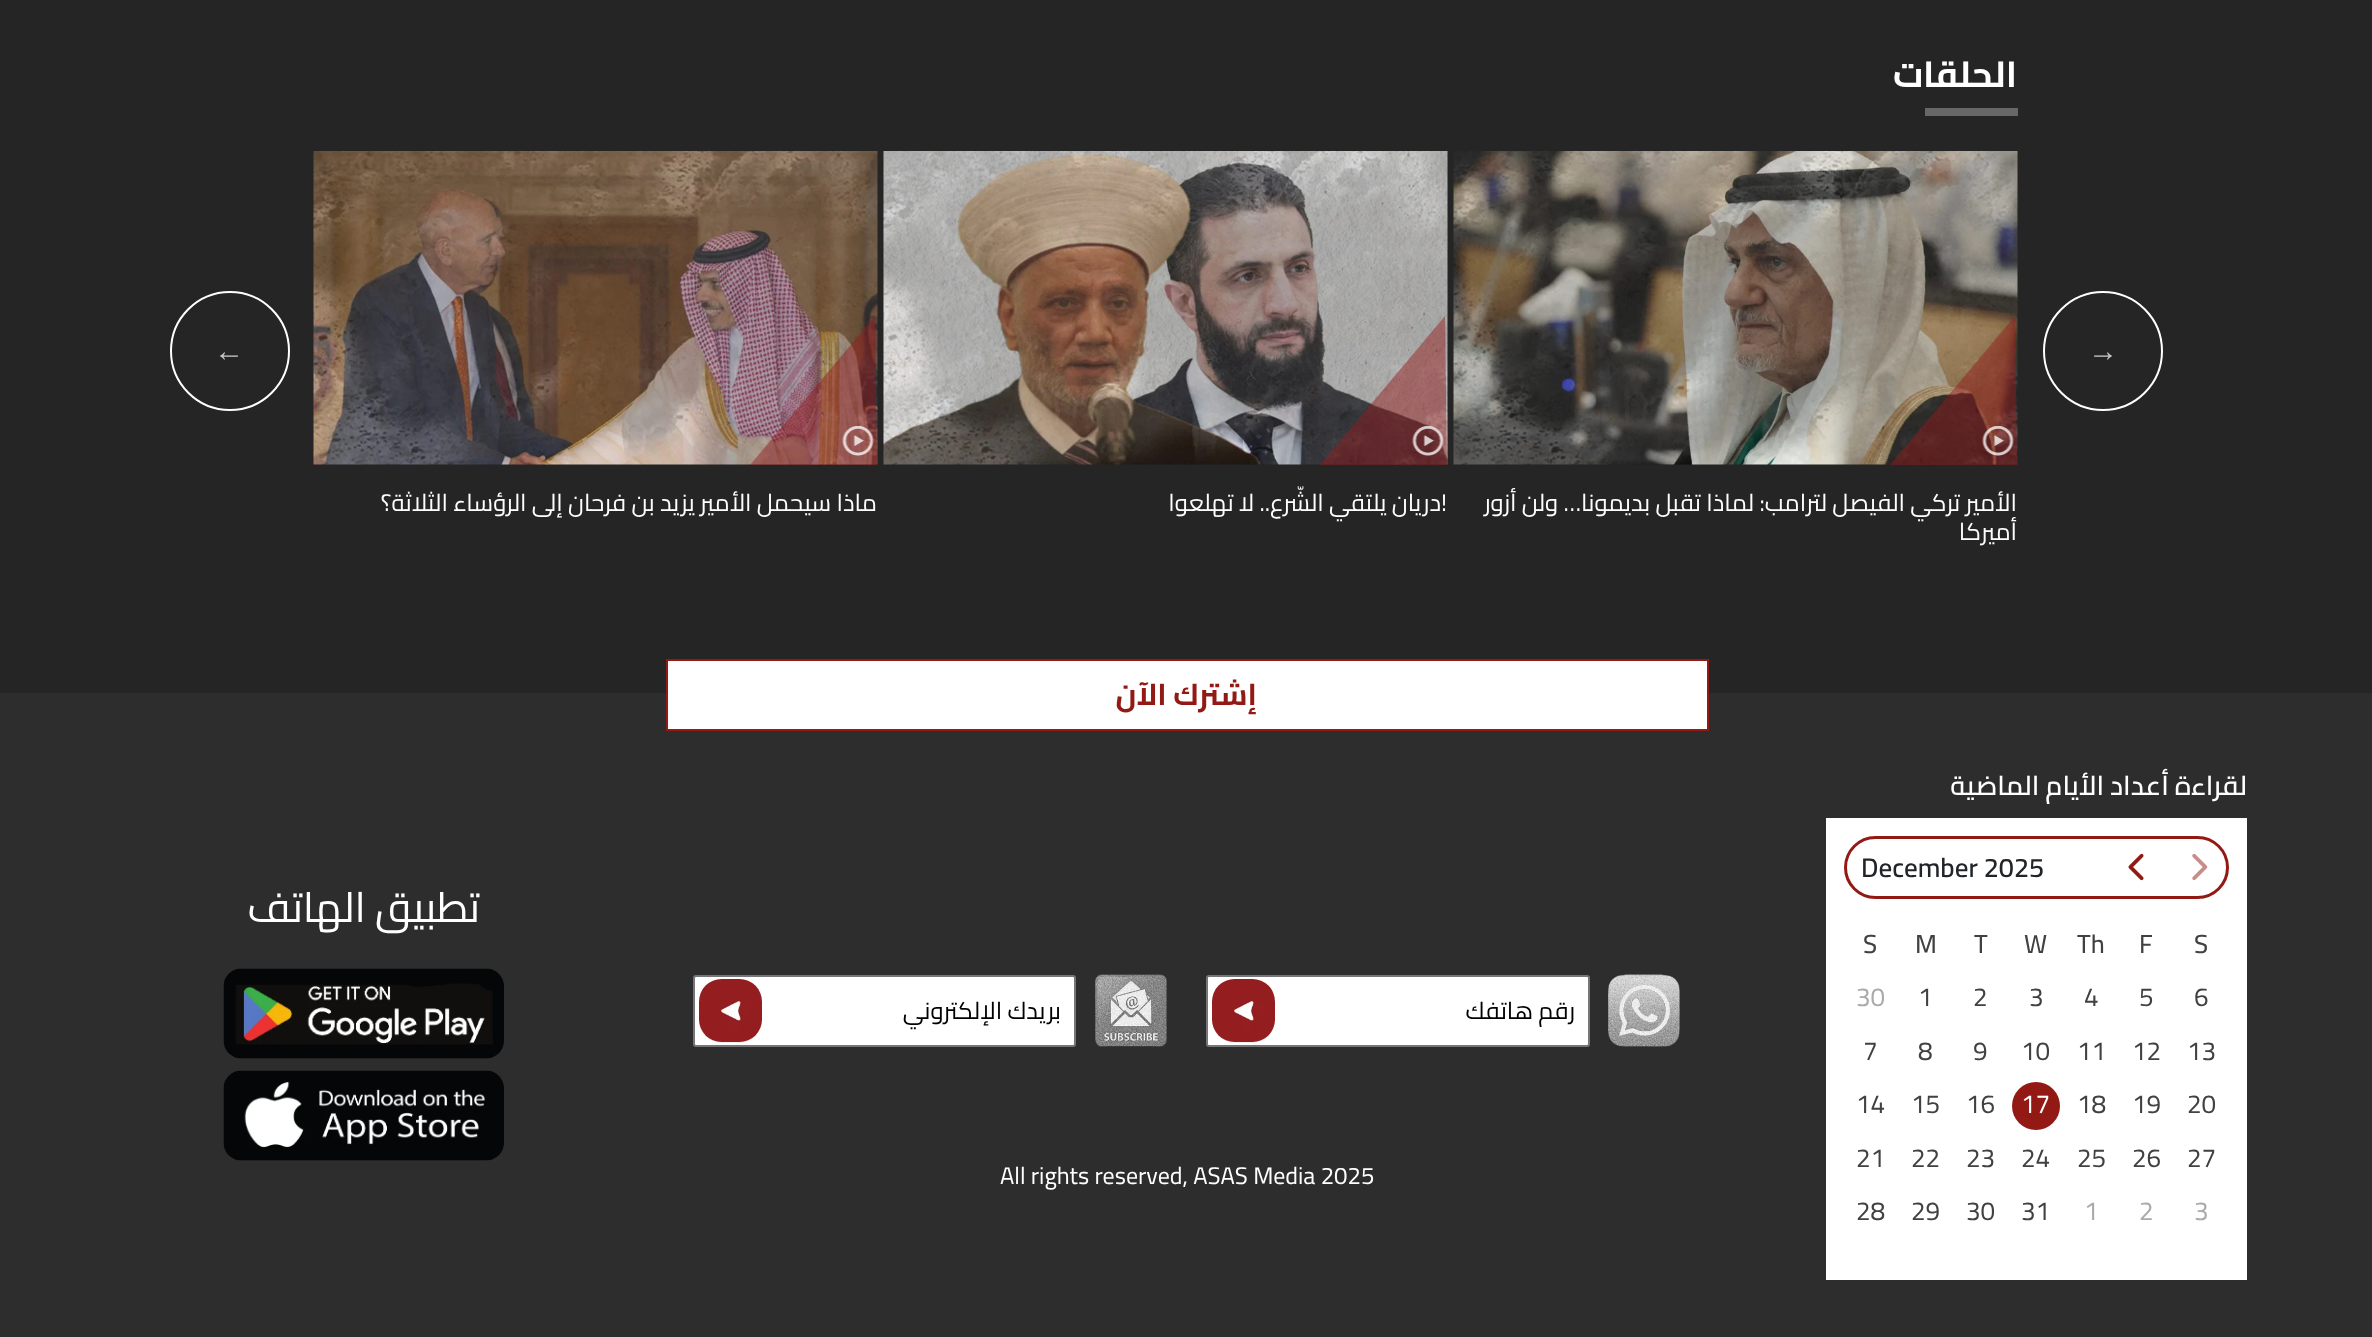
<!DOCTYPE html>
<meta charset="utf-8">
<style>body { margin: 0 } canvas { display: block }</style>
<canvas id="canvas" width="2372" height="1337"></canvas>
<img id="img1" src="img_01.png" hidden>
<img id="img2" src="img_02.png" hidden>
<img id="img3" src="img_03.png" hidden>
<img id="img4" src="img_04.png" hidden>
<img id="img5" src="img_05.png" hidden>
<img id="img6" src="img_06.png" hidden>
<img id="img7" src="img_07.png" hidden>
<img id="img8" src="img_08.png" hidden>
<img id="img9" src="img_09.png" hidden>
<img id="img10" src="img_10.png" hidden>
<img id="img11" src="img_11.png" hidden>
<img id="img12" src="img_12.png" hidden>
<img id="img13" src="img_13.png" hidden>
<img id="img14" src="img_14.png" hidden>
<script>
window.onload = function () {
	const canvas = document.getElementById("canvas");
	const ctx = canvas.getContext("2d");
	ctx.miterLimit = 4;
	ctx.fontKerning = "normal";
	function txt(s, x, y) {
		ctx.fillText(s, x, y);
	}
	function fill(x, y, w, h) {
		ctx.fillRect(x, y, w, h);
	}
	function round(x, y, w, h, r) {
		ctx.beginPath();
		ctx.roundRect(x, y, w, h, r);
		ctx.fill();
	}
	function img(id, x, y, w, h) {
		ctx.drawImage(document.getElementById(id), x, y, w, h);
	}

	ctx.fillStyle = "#252525";
	fill(0, 0, 2372, 1337);
	ctx.fillStyle = "#676767";
	fill(1925, 108, 93, 8);
	ctx.beginPath();
	ctx.arc(2103, 351, 59, 0, Math.PI * 2);
	ctx.strokeStyle = "#FFFFFF";
	ctx.lineWidth = 2;
	ctx.stroke();
	ctx.beginPath();
	ctx.arc(230, 351, 59, 0, Math.PI * 2);
	ctx.stroke();
	img("img1", 1453, 151, 565, 314);
	ctx.save();
	ctx.beginPath();
	ctx.rect(1890, 315, 128, 150);
	ctx.clip();
	ctx.fillStyle = "rgba(148, 28, 30, 0.47)";
	ctx.beginPath();
	ctx.moveTo(2015, 316);
	ctx.lineTo(2017, 467);
	ctx.lineTo(1890, 465);
	ctx.closePath();
	ctx.fill();
	ctx.restore();
	img("img2", 1982, 425, 32, 31);
	img("img3", 883, 151, 565, 314);
	ctx.save();
	ctx.beginPath();
	ctx.rect(1320, 315, 128, 150);
	ctx.clip();
	ctx.fillStyle = "rgba(148, 28, 30, 0.47)";
	ctx.beginPath();
	ctx.moveTo(1445, 316);
	ctx.lineTo(1447, 467);
	ctx.lineTo(1320, 465);
	ctx.closePath();
	ctx.fill();
	ctx.restore();
	img("img4", 1412, 425, 32, 31);
	img("img5", 313, 151, 565, 314);
	ctx.save();
	ctx.beginPath();
	ctx.rect(750, 315, 128, 150);
	ctx.clip();
	ctx.fillStyle = "rgba(148, 28, 30, 0.47)";
	ctx.beginPath();
	ctx.moveTo(875, 316);
	ctx.lineTo(877, 467);
	ctx.lineTo(750, 465);
	ctx.closePath();
	ctx.fill();
	ctx.restore();
	img("img6", 842, 425, 32, 31);
	ctx.fillStyle = "#2D2D2D";
	fill(0, 693, 2372, 644);
	ctx.fillStyle = "#FFFFFF";
	ctx.beginPath();
	ctx.rect(667, 660, 1041, 70);
	ctx.fill();
	ctx.strokeStyle = "#931914";
	ctx.stroke();
	fill(1826, 818, 421, 462);
	ctx.beginPath();
	ctx.roundRect(1845.5, 837.5, 382, 60, 30);
	ctx.lineWidth = 3;
	ctx.stroke();
	img("img7", 2192, 853, 16, 28);
	img("img8", 2128, 853, 16, 28);
	ctx.fillStyle = "#931914";
	ctx.beginPath();
	ctx.arc(2036, 1106, 24, 0, Math.PI * 2);
	ctx.fill();
	img("img9", 223, 968, 281, 91);
	img("img10", 223, 1070, 281, 91);
	img("img11", 1608, 974, 72, 73);
	ctx.fillStyle = "#FFFFFF";
	ctx.beginPath();
	ctx.roundRect(1207, 976, 382, 70, 2);
	ctx.fill();
	ctx.strokeStyle = "#767676";
	ctx.lineWidth = 2;
	ctx.stroke();
	ctx.fillStyle = "#EFEFEF";
	round(1212, 980, 63, 63, 23);
	img("img12", 1212, 979, 63, 63);
	img("img13", 1095, 974, 72, 73);
	ctx.fillStyle = "#FFFFFF";
	ctx.beginPath();
	ctx.roundRect(694, 976, 381, 70, 2);
	ctx.fill();
	ctx.stroke();
	ctx.fillStyle = "#EFEFEF";
	round(699, 980, 63, 63, 23);
	img("img14", 699, 979, 63, 63);
	ctx.direction = "rtl";
	ctx.font = "bold 36px Cairo";
	ctx.fillStyle = "#FFFFFF";
	txt("الحلقات", 2017, 87);
	ctx.direction = "ltr";
	ctx.font = "30px Liberation Sans";
	ctx.fillStyle = "#C9C9C9";
	txt("→", 2088, 361);
	txt("←", 214, 361);
	ctx.direction = "rtl";
	ctx.font = "24px Cairo";
	ctx.fillStyle = "#FFFFFF";
	txt("الأمير تركي الفيصل لترامب: لماذا تقبل بديمونا… ولن أزور", 2017, 511);
	txt("أميركا", 2017, 540);
	ctx.direction = "ltr";
	txt("!", 1441, 511);
	ctx.direction = "rtl";
	txt("دريان يلتقي الشّرع.. لا تهلعوا", 1441, 511);
	txt("ماذا سيحمل الأمير يزيد بن فرحان إلى الرؤساء الثلاثة؟", 877, 511);
	ctx.font = "bold 30px Cairo";
	ctx.fillStyle = "#931914";
	txt("إشترك الآن", 1257, 705);
	ctx.font = "600 27px Cairo";
	ctx.fillStyle = "#FFFFFF";
	txt("لقراءة أعداد الأيام الماضية", 2247, 795);
	ctx.direction = "ltr";
	ctx.fillStyle = "#212529";
	txt("December 2025", 1861, 877);
	ctx.font = "500 26px Cairo";
	ctx.fillStyle = "#414141";
	txt("S", 2194, 953);
	txt("F", 2139, 953);
	txt("Th", 2077, 953);
	txt("W", 2024, 953);
	txt("T", 1974, 953);
	txt("M", 1915, 953);
	txt("S", 1863, 953);
	ctx.font = "26px Cairo";
	txt("6", 2194, 1006);
	txt("5", 2139, 1006);
	txt("4", 2084, 1006);
	txt("3", 2029, 1006);
	txt("2", 1973, 1006);
	txt("1", 1918, 1006);
	ctx.fillStyle = "#AAAAAA";
	txt("30", 1856, 1006);
	ctx.fillStyle = "#414141";
	txt("13", 2187, 1060);
	txt("12", 2132, 1060);
	txt("11", 2077, 1060);
	txt("10", 2021, 1060);
	txt("9", 1973, 1060);
	txt("8", 1918, 1060);
	txt("7", 1863, 1060);
	txt("20", 2187, 1113);
	txt("19", 2132, 1113);
	txt("18", 2077, 1113);
	ctx.fillStyle = "#FFFFFF";
	txt("17", 2021, 1113);
	ctx.fillStyle = "#414141";
	txt("16", 1966, 1113);
	txt("15", 1911, 1113);
	txt("14", 1856, 1113);
	txt("27", 2187, 1167);
	txt("26", 2132, 1167);
	txt("25", 2077, 1167);
	txt("24", 2021, 1167);
	txt("23", 1966, 1167);
	txt("22", 1911, 1167);
	txt("21", 1856, 1167);
	ctx.fillStyle = "#AAAAAA";
	txt("3", 2194, 1220);
	txt("2", 2139, 1220);
	txt("1", 2084, 1220);
	ctx.fillStyle = "#414141";
	txt("31", 2021, 1220);
	txt("30", 1966, 1220);
	txt("29", 1911, 1220);
	txt("28", 1856, 1220);
	ctx.direction = "rtl";
	ctx.font = "42px Cairo";
	ctx.fillStyle = "#FFFFFF";
	txt("تطبيق الهاتف", 480, 922);
	ctx.font = "24px Cairo";
	ctx.fillStyle = "#000000";
	txt("رقم هاتفك", 1575, 1019);
	txt("بريدك الإلكتروني", 1061, 1019);
	ctx.direction = "ltr";
	ctx.fillStyle = "#FFFFFF";
	txt("All rights reserved, ASAS Media 2025", 1000, 1184);
};
</script>
